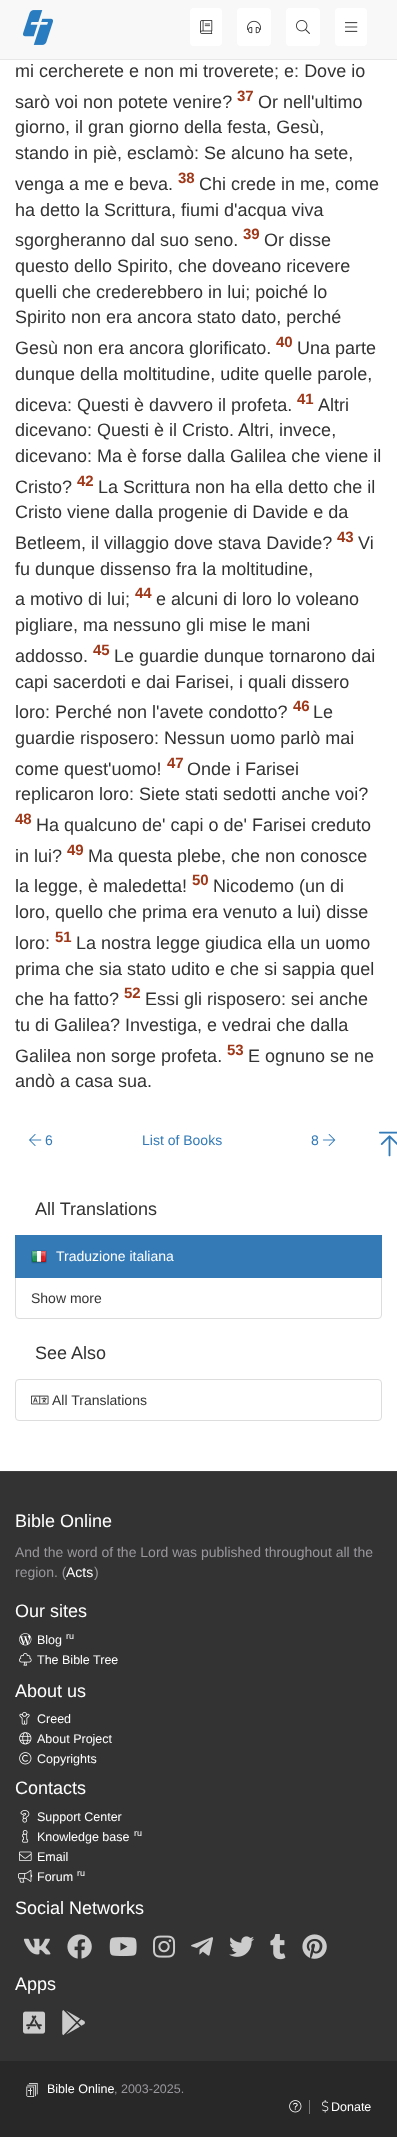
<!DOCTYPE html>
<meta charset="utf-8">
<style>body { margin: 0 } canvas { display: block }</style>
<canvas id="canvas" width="397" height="2137"></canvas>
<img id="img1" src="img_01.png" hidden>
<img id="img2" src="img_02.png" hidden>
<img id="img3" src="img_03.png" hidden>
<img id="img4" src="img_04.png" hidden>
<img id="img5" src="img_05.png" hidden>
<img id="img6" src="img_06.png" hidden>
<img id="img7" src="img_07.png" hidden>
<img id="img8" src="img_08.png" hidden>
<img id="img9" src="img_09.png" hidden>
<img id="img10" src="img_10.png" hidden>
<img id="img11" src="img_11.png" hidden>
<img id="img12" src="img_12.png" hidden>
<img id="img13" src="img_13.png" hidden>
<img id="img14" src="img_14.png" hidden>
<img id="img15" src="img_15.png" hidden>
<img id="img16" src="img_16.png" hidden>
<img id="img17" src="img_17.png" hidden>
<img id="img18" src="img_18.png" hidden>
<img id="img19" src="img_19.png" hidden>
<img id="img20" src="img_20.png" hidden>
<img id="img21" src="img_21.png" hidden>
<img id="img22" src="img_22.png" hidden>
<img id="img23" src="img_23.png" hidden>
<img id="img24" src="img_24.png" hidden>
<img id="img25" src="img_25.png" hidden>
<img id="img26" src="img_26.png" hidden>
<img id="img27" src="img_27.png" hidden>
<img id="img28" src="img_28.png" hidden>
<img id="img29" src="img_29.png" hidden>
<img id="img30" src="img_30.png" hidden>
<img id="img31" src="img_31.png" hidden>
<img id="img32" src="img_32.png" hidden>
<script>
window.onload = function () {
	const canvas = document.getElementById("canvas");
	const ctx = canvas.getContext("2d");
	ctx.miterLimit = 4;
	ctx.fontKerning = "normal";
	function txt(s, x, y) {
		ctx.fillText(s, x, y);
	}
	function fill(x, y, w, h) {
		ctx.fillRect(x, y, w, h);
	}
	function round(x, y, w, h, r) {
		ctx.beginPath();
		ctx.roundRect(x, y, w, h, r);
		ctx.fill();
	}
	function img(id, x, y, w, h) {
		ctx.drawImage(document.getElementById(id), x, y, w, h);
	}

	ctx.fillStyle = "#FFFFFF";
	fill(0, 0, 397, 2137);
	ctx.fillStyle = "#F8F8F8";
	fill(0, 0, 397, 59);
	ctx.fillStyle = "#E7E7E7";
	fill(0, 59, 397, 1);
	img("img1", 23, 10, 31, 35);
	ctx.fillStyle = "#FFFFFF";
	round(190, 8, 32, 38, 4);
	img("img2", 200, 20, 13, 14);
	round(237, 8, 34, 38, 4);
	img("img3", 247, 20, 14, 14);
	round(286, 8, 34, 38, 4);
	img("img4", 296, 20, 14, 14);
	round(335, 8, 32, 38, 4);
	img("img5", 345, 22, 13, 10);
	img("img6", 29, 1134, 13, 12);
	img("img7", 323, 1134, 13, 12);
	img("img8", 379, 1131, 18, 26);
	ctx.beginPath();
	ctx.roundRect(15.5, 1277.5, 366, 41, [0, 0, 3.5, 3.5]);
	ctx.strokeStyle = "#DDDDDD";
	ctx.stroke();
	ctx.fillStyle = "#337AB7";
	fill(15, 1235, 367, 43);
	img("img9", 31, 1250, 16, 14);
	ctx.beginPath();
	ctx.roundRect(15.5, 1379.5, 366, 41, 3.5);
	ctx.stroke();
	img("img10", 31, 1395, 18, 10);
	ctx.fillStyle = "#333333";
	fill(0, 1472, 397, 589);
	ctx.fillStyle = "#3F3F3F";
	fill(0, 1471, 397, 1);
	img("img11", 19, 1633, 13, 13);
	img("img12", 19, 1653, 13, 13);
	img("img13", 19, 1712, 11, 13);
	img("img14", 19, 1732, 13, 13);
	img("img15", 19, 1752, 13, 13);
	img("img16", 20, 1810, 10, 13);
	img("img17", 22, 1830, 7, 13);
	img("img18", 19, 1851, 13, 10);
	img("img19", 18, 1870, 15, 13);
	img("img20", 23, 1938, 28, 17);
	img("img21", 67, 1934, 25, 25);
	img("img22", 109, 1937, 28, 20);
	img("img23", 153, 1935, 23, 23);
	img("img24", 191, 1937, 22, 19);
	img("img25", 229, 1936, 25, 21);
	img("img26", 270, 1934, 16, 26);
	img("img27", 302, 1934, 25, 25);
	img("img28", 23, 2011, 23, 23);
	img("img29", 62, 2010, 23, 26);
	ctx.fillStyle = "#282828";
	fill(0, 2061, 397, 76);
	img("img30", 26, 2083, 12, 14);
	img("img31", 289, 2100, 13, 13);
	ctx.fillStyle = "#777777";
	fill(309, 2100, 1, 14);
	img("img32", 322, 2100, 7, 13);
	ctx.font = "18px Liberation Sans";
	ctx.fillStyle = "#333333";
	txt("mi cercherete e non mi troverete; e: Dove io", 15, 77);
	txt("sarò voi non potete venire?", 15, 108);
	ctx.font = "bold 15px Liberation Sans";
	ctx.fillStyle = "#9F3819";
	txt("37", 237, 101);
	ctx.font = "18px Liberation Sans";
	ctx.fillStyle = "#333333";
	txt("Or nell'ultimo", 258, 108);
	txt("giorno, il gran giorno della festa, Gesù,", 15, 133);
	txt("stando in piè, esclamò: Se alcuno ha sete,", 15, 159);
	txt("venga a me e beva.", 15, 190);
	ctx.font = "bold 15px Liberation Sans";
	ctx.fillStyle = "#9F3819";
	txt("38", 178, 183);
	ctx.font = "18px Liberation Sans";
	ctx.fillStyle = "#333333";
	txt("Chi crede in me, come", 199, 190);
	txt("ha detto la Scrittura, fiumi d'acqua viva", 15, 216);
	txt("sgorgheranno dal suo seno.", 15, 246);
	ctx.font = "bold 15px Liberation Sans";
	ctx.fillStyle = "#9F3819";
	txt("39", 243, 239);
	ctx.font = "18px Liberation Sans";
	ctx.fillStyle = "#333333";
	txt("Or disse", 264, 246);
	txt("questo dello Spirito, che doveano ricevere", 15, 272);
	txt("quelli che crederebbero in lui; poiché lo", 15, 298);
	txt("Spirito non era ancora stato dato, perché", 15, 323);
	txt("Gesù non era ancora glorificato.", 15, 354);
	ctx.font = "bold 15px Liberation Sans";
	ctx.fillStyle = "#9F3819";
	txt("40", 276, 347);
	ctx.font = "18px Liberation Sans";
	ctx.fillStyle = "#333333";
	txt("Una parte", 297, 354);
	txt("dunque della moltitudine, udite quelle parole,", 15, 380);
	txt("diceva: Questi è davvero il profeta.", 15, 411);
	ctx.font = "bold 15px Liberation Sans";
	ctx.fillStyle = "#9F3819";
	txt("41", 297, 404);
	ctx.font = "18px Liberation Sans";
	ctx.fillStyle = "#333333";
	txt("Altri", 318, 411);
	txt("dicevano: Questi è il Cristo. Altri, invece,", 15, 436);
	txt("dicevano: Ma è forse dalla Galilea che viene il", 15, 462);
	txt("Cristo?", 15, 493);
	ctx.font = "bold 15px Liberation Sans";
	ctx.fillStyle = "#9F3819";
	txt("42", 77, 486);
	ctx.font = "18px Liberation Sans";
	ctx.fillStyle = "#333333";
	txt("La Scrittura non ha ella detto che il", 98, 493);
	txt("Cristo viene dalla progenie di Davide e da", 15, 518);
	txt("Betleem, il villaggio dove stava Davide?", 15, 549);
	ctx.font = "bold 15px Liberation Sans";
	ctx.fillStyle = "#9F3819";
	txt("43", 337, 542);
	ctx.font = "18px Liberation Sans";
	ctx.fillStyle = "#333333";
	txt("Vi", 358, 549);
	txt("fu dunque dissenso fra la moltitudine,", 15, 575);
	txt("a motivo di lui;", 15, 605);
	ctx.font = "bold 15px Liberation Sans";
	ctx.fillStyle = "#9F3819";
	txt("44", 135, 598);
	ctx.font = "18px Liberation Sans";
	ctx.fillStyle = "#333333";
	txt("e alcuni di loro lo voleano", 156, 605);
	txt("pigliare, ma nessuno gli mise le mani", 15, 631);
	txt("addosso.", 15, 662);
	ctx.font = "bold 15px Liberation Sans";
	ctx.fillStyle = "#9F3819";
	txt("45", 93, 655);
	ctx.font = "18px Liberation Sans";
	ctx.fillStyle = "#333333";
	txt("Le guardie dunque tornarono dai", 114, 662);
	txt("capi sacerdoti e dai Farisei, i quali dissero", 15, 688);
	txt("loro: Perché non l'avete condotto?", 15, 718);
	ctx.font = "bold 15px Liberation Sans";
	ctx.fillStyle = "#9F3819";
	txt("46", 293, 711);
	ctx.font = "18px Liberation Sans";
	ctx.fillStyle = "#333333";
	txt("Le", 313, 718);
	txt("guardie risposero: Nessun uomo parlò mai", 15, 744);
	txt("come quest'uomo!", 15, 775);
	ctx.font = "bold 15px Liberation Sans";
	ctx.fillStyle = "#9F3819";
	txt("47", 167, 768);
	ctx.font = "18px Liberation Sans";
	ctx.fillStyle = "#333333";
	txt("Onde i Farisei", 187, 775);
	txt("replicaron loro: Siete stati sedotti anche voi?", 15, 800);
	ctx.font = "bold 15px Liberation Sans";
	ctx.fillStyle = "#9F3819";
	txt("48", 15, 824);
	ctx.font = "18px Liberation Sans";
	ctx.fillStyle = "#333333";
	txt("Ha qualcuno de' capi o de' Farisei creduto", 36, 831);
	txt("in lui?", 15, 862);
	ctx.font = "bold 15px Liberation Sans";
	ctx.fillStyle = "#9F3819";
	txt("49", 67, 855);
	ctx.font = "18px Liberation Sans";
	ctx.fillStyle = "#333333";
	txt("Ma questa plebe, che non conosce", 88, 862);
	txt("la legge, è maledetta!", 15, 892);
	ctx.font = "bold 15px Liberation Sans";
	ctx.fillStyle = "#9F3819";
	txt("50", 192, 885);
	ctx.font = "18px Liberation Sans";
	ctx.fillStyle = "#333333";
	txt("Nicodemo (un di", 213, 892);
	txt("loro, quello che prima era venuto a lui) disse", 15, 918);
	txt("loro:", 15, 949);
	ctx.font = "bold 15px Liberation Sans";
	ctx.fillStyle = "#9F3819";
	txt("51", 55, 942);
	ctx.font = "18px Liberation Sans";
	ctx.fillStyle = "#333333";
	txt("La nostra legge giudica ella un uomo", 76, 949);
	txt("prima che sia stato udito e che si sappia quel", 15, 975);
	txt("che ha fatto?", 15, 1005);
	ctx.font = "bold 15px Liberation Sans";
	ctx.fillStyle = "#9F3819";
	txt("52", 124, 998);
	ctx.font = "18px Liberation Sans";
	ctx.fillStyle = "#333333";
	txt("Essi gli risposero: sei anche", 145, 1005);
	txt("tu di Galilea? Investiga, e vedrai che dalla", 15, 1031);
	txt("Galilea non sorge profeta.", 15, 1062);
	ctx.font = "bold 15px Liberation Sans";
	ctx.fillStyle = "#9F3819";
	txt("53", 227, 1055);
	ctx.font = "18px Liberation Sans";
	ctx.fillStyle = "#333333";
	txt("E ognuno se ne", 248, 1062);
	txt("andò a casa sua.", 15, 1087);
	ctx.font = "14px Liberation Sans";
	ctx.fillStyle = "#337AB7";
	txt("6", 45, 1145);
	txt("List of Books", 142, 1145);
	txt("8", 311, 1145);
	ctx.font = "18px Liberation Sans";
	ctx.fillStyle = "#333333";
	txt("All Translations", 35, 1215);
	ctx.font = "14px Liberation Sans";
	ctx.fillStyle = "#FFFFFF";
	txt("Traduzione italiana", 56, 1261);
	ctx.fillStyle = "#333333";
	txt("Show more", 31, 1303);
	ctx.font = "18px Liberation Sans";
	txt("See Also", 35, 1359);
	ctx.font = "14px Liberation Sans";
	txt("All Translations", 52, 1405);
	ctx.font = "18px Liberation Sans";
	ctx.fillStyle = "#FFFFFF";
	txt("Bible Online", 15, 1527);
	ctx.font = "14px Liberation Sans";
	ctx.fillStyle = "#99979C";
	txt("And the word of the Lord was published throughout all the", 15, 1557);
	txt("region. (", 15, 1577);
	ctx.fillStyle = "#FFFFFF";
	txt("Acts", 66, 1577);
	ctx.fillStyle = "#99979C";
	txt(")", 94, 1577);
	ctx.font = "18px Liberation Sans";
	ctx.fillStyle = "#FFFFFF";
	txt("Our sites", 15, 1617);
	ctx.font = "12.5px Liberation Sans";
	txt("Blog", 37, 1644);
	ctx.font = "9px Liberation Sans";
	txt("ru", 66, 1639);
	ctx.font = "12.5px Liberation Sans";
	txt("The Bible Tree", 37, 1664);
	ctx.font = "18px Liberation Sans";
	txt("About us", 15, 1697);
	ctx.font = "12.5px Liberation Sans";
	txt("Creed", 37, 1723);
	txt("About Project", 37, 1743);
	txt("Copyrights", 37, 1763);
	ctx.font = "18px Liberation Sans";
	txt("Contacts", 15, 1794);
	ctx.font = "12.5px Liberation Sans";
	txt("Support Center", 37, 1821);
	txt("Knowledge base", 37, 1841);
	ctx.font = "9px Liberation Sans";
	txt("ru", 134, 1836);
	ctx.font = "12.5px Liberation Sans";
	txt("Email", 37, 1861);
	txt("Forum", 37, 1881);
	ctx.font = "9px Liberation Sans";
	txt("ru", 77, 1876);
	ctx.font = "18px Liberation Sans";
	txt("Social Networks", 15, 1914);
	txt("Apps", 15, 1990);
	ctx.font = "12.5px Liberation Sans";
	txt("Bible Online", 47, 2093);
	ctx.fillStyle = "#99979C";
	txt(", 2003-2025.", 114, 2093);
	ctx.fillStyle = "#FFFFFF";
	txt("Donate", 331, 2111);
};
</script>
